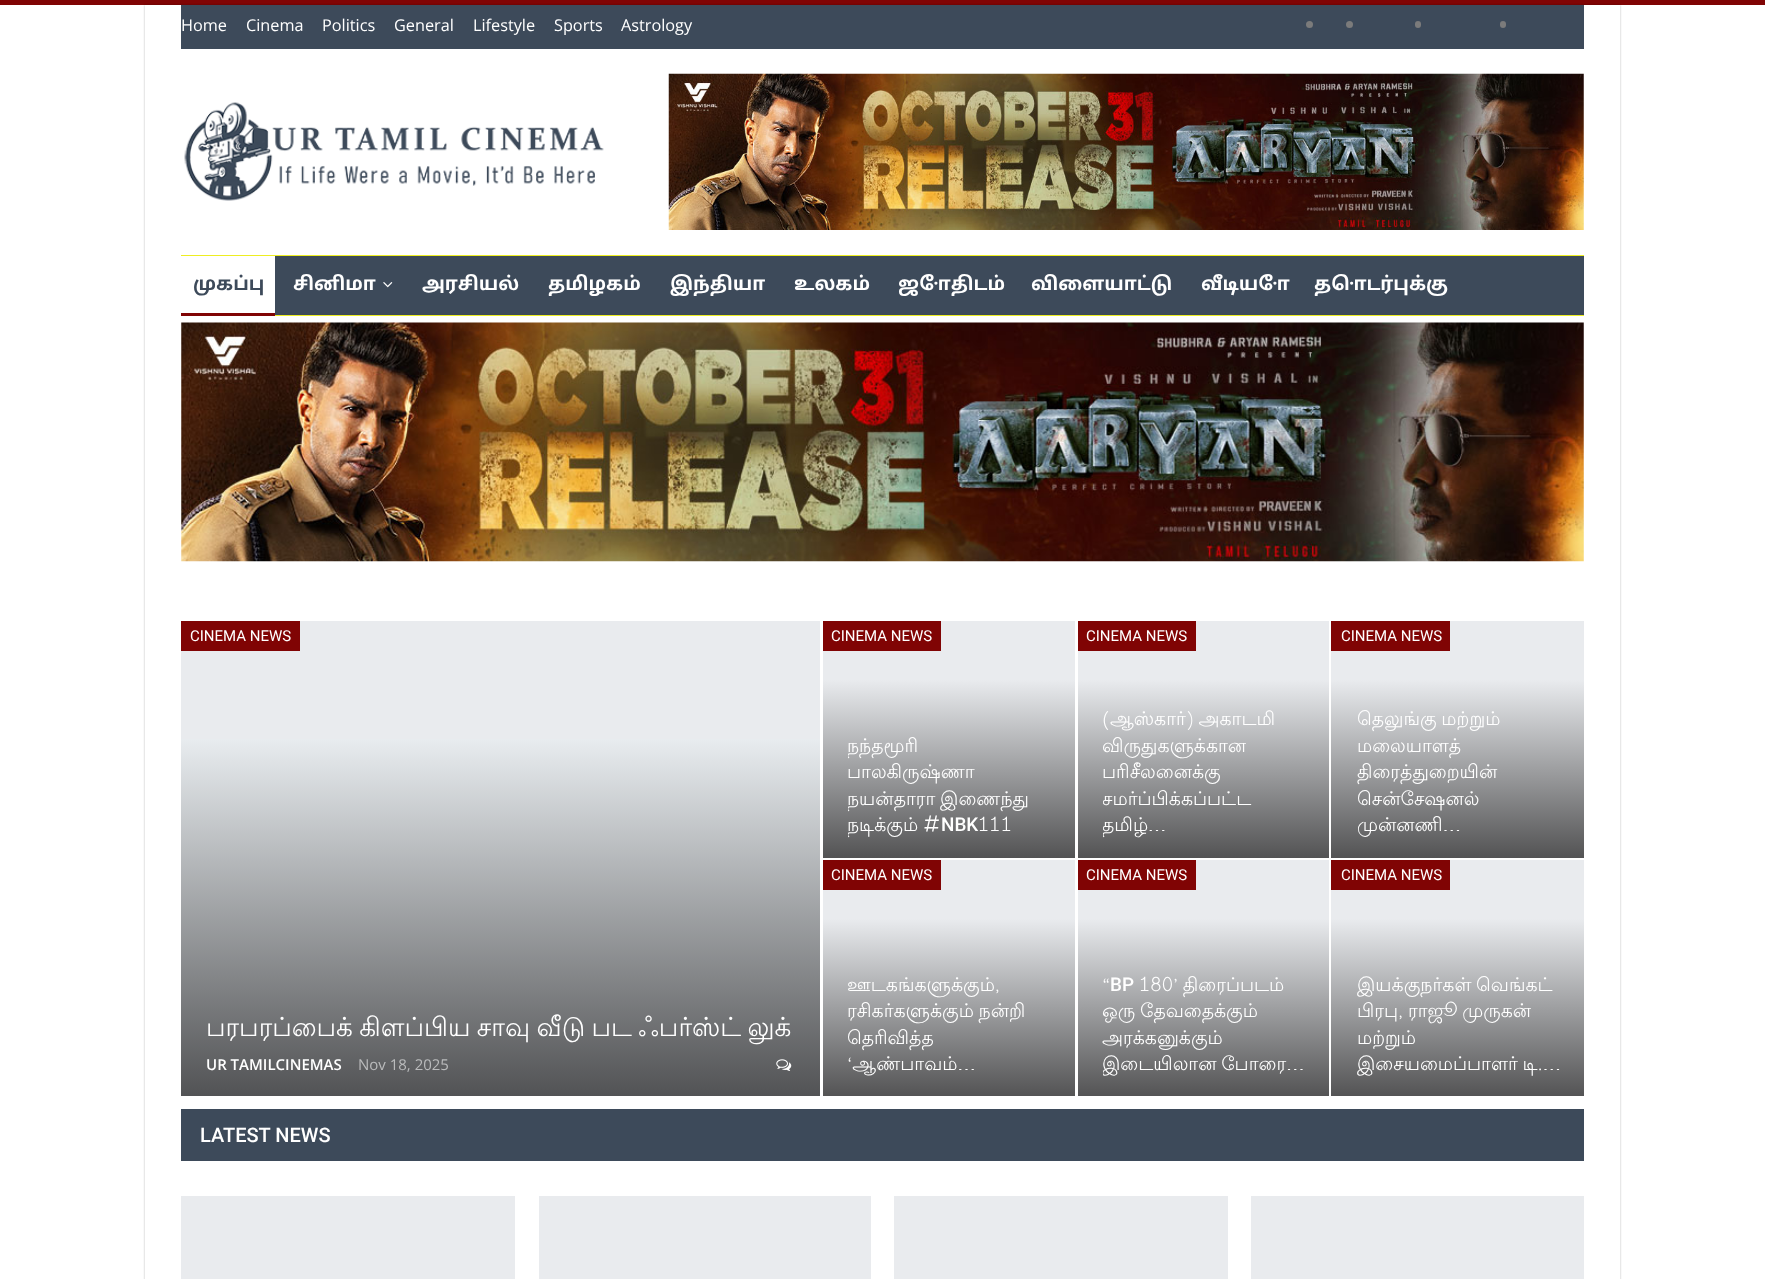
<!DOCTYPE html>
<meta charset="utf-8">
<style>body { margin: 0 } canvas { display: block }</style>
<canvas id="canvas" width="1765" height="1279"></canvas>
<img id="img1" src="img_01.png" hidden>
<img id="img2" src="img_02.png" hidden>
<img id="img3" src="img_03.png" hidden>
<img id="img4" src="img_04.png" hidden>
<img id="img5" src="img_05.png" hidden>
<script>
window.onload = function () {
	const canvas = document.getElementById("canvas");
	const ctx = canvas.getContext("2d");
	ctx.miterLimit = 4;
	ctx.fontKerning = "normal";
	function txt(s, x, y) {
		ctx.fillText(s, x, y);
	}
	function fill(x, y, w, h) {
		ctx.fillRect(x, y, w, h);
	}
	function round(x, y, w, h, r) {
		ctx.beginPath();
		ctx.roundRect(x, y, w, h, r);
		ctx.fill();
	}
	function img(id, x, y, w, h) {
		ctx.drawImage(document.getElementById(id), x, y, w, h);
	}
	let gradient;

	ctx.fillStyle = "#FFFFFF";
	fill(0, 0, 1765, 1279);
	ctx.fillStyle = "#800404";
	fill(0, 0, 1765, 5);
	ctx.save();
	ctx.beginPath();
	ctx.moveTo(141, 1);
	ctx.lineTo(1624, 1);
	ctx.lineTo(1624, 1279);
	ctx.lineTo(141, 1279);
	ctx.closePath();
	ctx.moveTo(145, 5);
	ctx.lineTo(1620, 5);
	ctx.lineTo(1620, 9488);
	ctx.lineTo(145, 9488);
	ctx.closePath();
	ctx.clip("evenodd");
	ctx.fillStyle = "rgba(0, 0, 0, 0.27)";
	ctx.filter = "blur(1px)";
	ctx.beginPath();
	ctx.rect(145, 5, 1475, 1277);
	ctx.fill();
	ctx.filter = "none";
	ctx.restore();
	ctx.fillStyle = "#3D4A5A";
	fill(181, 5, 1403, 44);
	ctx.fillStyle = "#7B7B7B";
	ctx.beginPath();
	ctx.arc(1309.5, 24.5, 3.5, 0, Math.PI * 2);
	ctx.fill();
	ctx.beginPath();
	ctx.arc(1349.5, 24.5, 3.5, 0, Math.PI * 2);
	ctx.fill();
	round(1415, 21, 6, 7, 3);
	round(1500, 21, 6, 7, 3);
	img("img1", 184, 102, 420, 99);
	img("img2", 668, 73, 916, 157);
	ctx.fillStyle = "#3D4A5A";
	fill(275, 256, 1309, 59);
	ctx.fillStyle = "#EEEE22";
	fill(181, 255, 1403, 1);
	fill(275, 315, 1309, 1);
	ctx.fillStyle = "#800404";
	fill(181, 313, 94, 3);
	img("img3", 383, 282, 10, 6);
	img("img4", 181, 322, 1403, 240);
	ctx.fillStyle = "#E9EBEE";
	fill(181, 621, 639, 118);
	gradient = ctx.createLinearGradient(501, 739, 501, 1098);
	gradient.addColorStop(0, "#E8ECEF");
	gradient.addColorStop(1, "#515254");
	ctx.fillStyle = gradient;
	fill(181, 739, 639, 357);
	ctx.fillStyle = "#800404";
	fill(181, 621, 119, 30);
	img("img5", 776, 1059, 16, 12);
	ctx.fillStyle = "#E9EBEE";
	fill(823, 621, 252, 59);
	gradient = ctx.createLinearGradient(949, 680, 949, 859);
	gradient.addColorStop(0, "#E9EBEE");
	gradient.addColorStop(1, "#525253");
	ctx.fillStyle = gradient;
	fill(823, 680, 252, 178);
	ctx.fillStyle = "#800404";
	fill(823, 621, 118, 30);
	ctx.fillStyle = "#E9EBEE";
	fill(1078, 621, 251, 59);
	gradient = ctx.createLinearGradient(1203, 680, 1203, 859);
	gradient.addColorStop(0, "#E9EBEE");
	gradient.addColorStop(1, "#525253");
	ctx.fillStyle = gradient;
	fill(1078, 680, 251, 178);
	ctx.fillStyle = "#800404";
	fill(1078, 621, 118, 30);
	ctx.fillStyle = "#E9EBEE";
	fill(823, 860, 252, 59);
	gradient = ctx.createLinearGradient(949, 919, 949, 1098);
	gradient.addColorStop(0, "#E9EBEE");
	gradient.addColorStop(1, "#525253");
	ctx.fillStyle = gradient;
	fill(823, 919, 252, 177);
	ctx.fillStyle = "#800404";
	fill(823, 860, 118, 30);
	ctx.fillStyle = "#E9EBEE";
	fill(1078, 860, 251, 59);
	gradient = ctx.createLinearGradient(1203, 919, 1203, 1098);
	gradient.addColorStop(0, "#E9EBEE");
	gradient.addColorStop(1, "#525253");
	ctx.fillStyle = gradient;
	fill(1078, 919, 251, 177);
	ctx.fillStyle = "#800404";
	fill(1078, 860, 118, 30);
	ctx.fillStyle = "#E9EBEE";
	fill(1331, 621, 253, 59);
	gradient = ctx.createLinearGradient(1458, 680, 1458, 859);
	gradient.addColorStop(0, "#E9EBEE");
	gradient.addColorStop(1, "#525253");
	ctx.fillStyle = gradient;
	fill(1331, 680, 253, 178);
	ctx.fillStyle = "#800404";
	fill(1331, 621, 119, 30);
	ctx.fillStyle = "#E9EBEE";
	fill(1331, 860, 253, 59);
	gradient = ctx.createLinearGradient(1458, 919, 1458, 1098);
	gradient.addColorStop(0, "#E9EBEE");
	gradient.addColorStop(1, "#525253");
	ctx.fillStyle = gradient;
	fill(1331, 919, 253, 177);
	ctx.fillStyle = "#800404";
	fill(1331, 860, 119, 30);
	ctx.fillStyle = "#3D4A5A";
	fill(181, 1109, 1403, 52);
	ctx.fillStyle = "#E9EBEE";
	fill(181, 1196, 334, 83);
	fill(539, 1196, 332, 83);
	fill(894, 1196, 334, 83);
	fill(1251, 1196, 333, 83);
	ctx.font = "16.25px Open Sans";
	ctx.fillStyle = "#FFFFFF";
	txt("Home", 181, 31);
	txt("Cinema", 246, 31);
	txt("Politics", 322, 31);
	txt("General", 394, 31);
	txt("Lifestyle", 473, 31);
	txt("Sports", 554, 31);
	txt("Astrology", 621, 31);
	ctx.font = "bold 18.75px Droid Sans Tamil";
	ctx.fillStyle = "#3D4A5A";
	txt("முகப்பு", 193, 290);
	ctx.fillStyle = "#FFFFFF";
	txt("சினிமா", 293, 290);
	txt("அரசியல்", 422, 290);
	txt("தமிழகம்", 548, 290);
	txt("இந்தியா", 670, 290);
	txt("உலகம்", 794, 290);
	txt("ஜோதிடம்", 898, 290);
	txt("விளையாட்டு", 1031, 290);
	txt("வீடியோ", 1201, 290);
	txt("தொடர்புக்கு", 1314, 290);
	ctx.font = "15px Roboto";
	txt("CINEMA NEWS", 190, 641);
	ctx.wordSpacing = "-1.5px";
	ctx.font = "26.25px Lohit Tamil";
	txt("பரபரப்பைக் கிளப்பிய சாவு வீடு பட ஃபர்ஸ்ட் லுக்", 206, 1036);
	ctx.wordSpacing = "0px";
	ctx.font = "600 15px Open Sans";
	txt("UR TAMILCINEMAS", 206, 1070);
	ctx.font = "15px Open Sans";
	ctx.fillStyle = "#BABBBC";
	txt("Nov 18, 2025", 358, 1070);
	ctx.font = "15px Roboto";
	ctx.fillStyle = "#FFFFFF";
	txt("CINEMA NEWS", 831, 641);
	ctx.save();
	ctx.beginPath();
	ctx.rect(848, 733, 202, 106);
	ctx.clip();
	ctx.font = "18.9px Lohit Tamil";
	txt("நந்தமூரி", 847, 752);
	ctx.restore();
	ctx.font = "18.9px Lohit Tamil";
	txt("பாலகிருஷ்ணா", 847, 778);
	ctx.save();
	ctx.beginPath();
	ctx.rect(848, 733, 202, 106);
	ctx.clip();
	ctx.wordSpacing = "-1px";
	txt("நயன்தாரா இணைந்து", 847, 805);
	txt("நடிக்கும் #", 847, 831);
	ctx.restore();
	ctx.font = "500 18.9px Roboto";
	txt("NBK", 941, 831);
	ctx.font = "18.9px Lohit Tamil";
	txt("111", 978, 831);
	ctx.font = "15px Roboto";
	txt("CINEMA NEWS", 1086, 641);
	ctx.wordSpacing = "-1px";
	ctx.font = "18.9px Lohit Tamil";
	txt("(ஆஸ்கார்) அகாடமி", 1102, 725);
	ctx.wordSpacing = "0px";
	txt("விருதுகளுக்கான", 1102, 752);
	txt("பரிசீலனைக்கு", 1102, 778);
	ctx.save();
	ctx.beginPath();
	ctx.rect(1103, 706, 201, 133);
	ctx.clip();
	txt("சமர்ப்பிக்கப்பட்ட", 1102, 805);
	txt("தமிழ்…", 1102, 831);
	ctx.restore();
	ctx.font = "15px Roboto";
	txt("CINEMA NEWS", 831, 880);
	ctx.font = "18.9px Lohit Tamil";
	txt("ஊடகங்களுக்கும்,", 847, 991);
	ctx.wordSpacing = "-1px";
	txt("ரசிகர்களுக்கும் நன்றி", 847, 1017);
	ctx.save();
	ctx.beginPath();
	ctx.rect(848, 973, 202, 105);
	ctx.clip();
	ctx.wordSpacing = "0px";
	txt("தெரிவித்த", 847, 1044);
	ctx.restore();
	ctx.wordSpacing = "0px";
	txt("‘ஆண்பாவம்…", 847, 1070);
	ctx.font = "15px Roboto";
	txt("CINEMA NEWS", 1086, 880);
	ctx.font = "18.9px Lohit Tamil";
	txt("“", 1102, 991);
	ctx.font = "500 18.9px Roboto";
	txt("BP", 1110, 991);
	ctx.wordSpacing = "-1px";
	ctx.font = "18.9px Lohit Tamil";
	txt("180’ திரைப்படம்", 1139, 991);
	txt("ஒரு தேவதைக்கும்", 1102, 1017);
	ctx.wordSpacing = "0px";
	txt("அரக்கனுக்கும்", 1102, 1044);
	ctx.save();
	ctx.beginPath();
	ctx.rect(1103, 973, 201, 105);
	ctx.clip();
	ctx.wordSpacing = "-1px";
	txt("இடையிலான போரை…", 1102, 1070);
	ctx.restore();
	ctx.font = "15px Roboto";
	txt("CINEMA NEWS", 1341, 641);
	ctx.wordSpacing = "-1px";
	ctx.font = "18.9px Lohit Tamil";
	txt("தெலுங்கு மற்றும்", 1357, 725);
	ctx.wordSpacing = "0px";
	txt("மலையாளத்", 1357, 752);
	txt("திரைத்துறையின்", 1357, 778);
	txt("சென்சேஷனல்", 1357, 805);
	txt("முன்னணி…", 1357, 831);
	ctx.font = "15px Roboto";
	txt("CINEMA NEWS", 1341, 880);
	ctx.wordSpacing = "-1px";
	ctx.font = "18.9px Lohit Tamil";
	txt("இயக்குநர்கள் வெங்கட்", 1357, 991);
	txt("பிரபு, ராஜூ முருகன்", 1357, 1017);
	ctx.wordSpacing = "0px";
	txt("மற்றும்", 1357, 1044);
	ctx.wordSpacing = "-1px";
	txt("இசையமைப்பாளர் டி.…", 1357, 1070);
	ctx.wordSpacing = "0px";
	ctx.font = "500 20px Roboto";
	txt("LATEST NEWS", 200, 1142);
};
</script>
